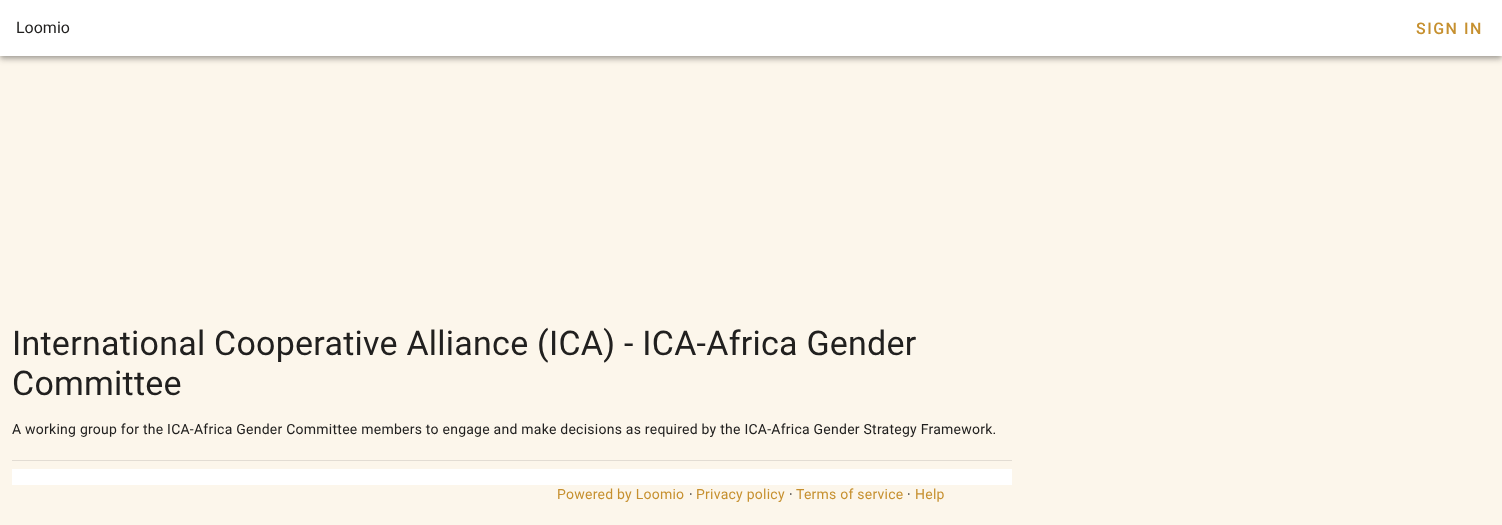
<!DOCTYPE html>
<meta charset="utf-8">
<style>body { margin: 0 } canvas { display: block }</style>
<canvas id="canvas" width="1502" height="525"></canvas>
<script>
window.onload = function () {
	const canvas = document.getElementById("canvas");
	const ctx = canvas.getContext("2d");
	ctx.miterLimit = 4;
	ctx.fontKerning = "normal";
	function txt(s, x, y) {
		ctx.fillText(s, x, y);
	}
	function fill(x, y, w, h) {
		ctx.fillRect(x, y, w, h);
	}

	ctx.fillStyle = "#FCF6EB";
	fill(0, 0, 1502, 525);
	ctx.fillStyle = "rgba(0, 0, 0, 0.12)";
	ctx.filter = "blur(5px)";
	ctx.beginPath();
	ctx.rect(0, 1, 1502, 56);
	ctx.fill();
	ctx.filter = "none";
	ctx.fillStyle = "rgba(0, 0, 0, 0.14)";
	ctx.filter = "blur(2.5px)";
	ctx.beginPath();
	ctx.rect(0, 4, 1502, 56);
	ctx.fill();
	ctx.filter = "none";
	ctx.fillStyle = "rgba(0, 0, 0, 0.2)";
	ctx.filter = "blur(2px)";
	ctx.beginPath();
	ctx.rect(1, 3, 1500, 54);
	ctx.fill();
	ctx.filter = "none";
	ctx.fillStyle = "#FFFFFF";
	fill(0, 0, 1502, 56);
	ctx.beginPath();
	ctx.roundRect(1415, 20, 66, 17, 3);
	ctx.strokeStyle = "#FFFFFF";
	ctx.lineWidth = 2;
	ctx.stroke();
	ctx.fillStyle = "#E2DCD3";
	fill(12, 460, 1000, 1);
	ctx.fillStyle = "#FFFFFF";
	fill(12, 469, 1000, 16);
	ctx.font = "16px Roboto";
	ctx.fillStyle = "#21201F";
	txt("Loomio", 16, 33);
	ctx.letterSpacing = "1.5px";
	ctx.font = "500 16px Roboto";
	ctx.fillStyle = "#C6902F";
	txt("SIGN IN", 1416, 34);
	ctx.letterSpacing = "0.25px";
	ctx.font = "34px Roboto";
	ctx.fillStyle = "#21201F";
	txt("International Cooperative Alliance (ICA) - ICA-Africa Gender", 12, 355);
	txt("Committee", 12, 395);
	ctx.font = "14px Roboto";
	txt("A working group for the ICA-Africa Gender Committee members to engage and make decisions as required by the ICA-Africa Gender Strategy Framework.", 12, 434);
	ctx.fillStyle = "#C6902F";
	txt("Powered by Loomio", 557, 499);
	ctx.fillStyle = "#21201F";
	txt("·", 689, 499);
	ctx.fillStyle = "#C6902F";
	txt("Privacy policy", 696, 499);
	ctx.fillStyle = "#21201F";
	txt("·", 789, 499);
	ctx.fillStyle = "#C6902F";
	txt("Terms of service", 796, 499);
	ctx.fillStyle = "#21201F";
	txt("·", 907, 499);
	ctx.fillStyle = "#C6902F";
	txt("Help", 915, 499);
};
</script>
